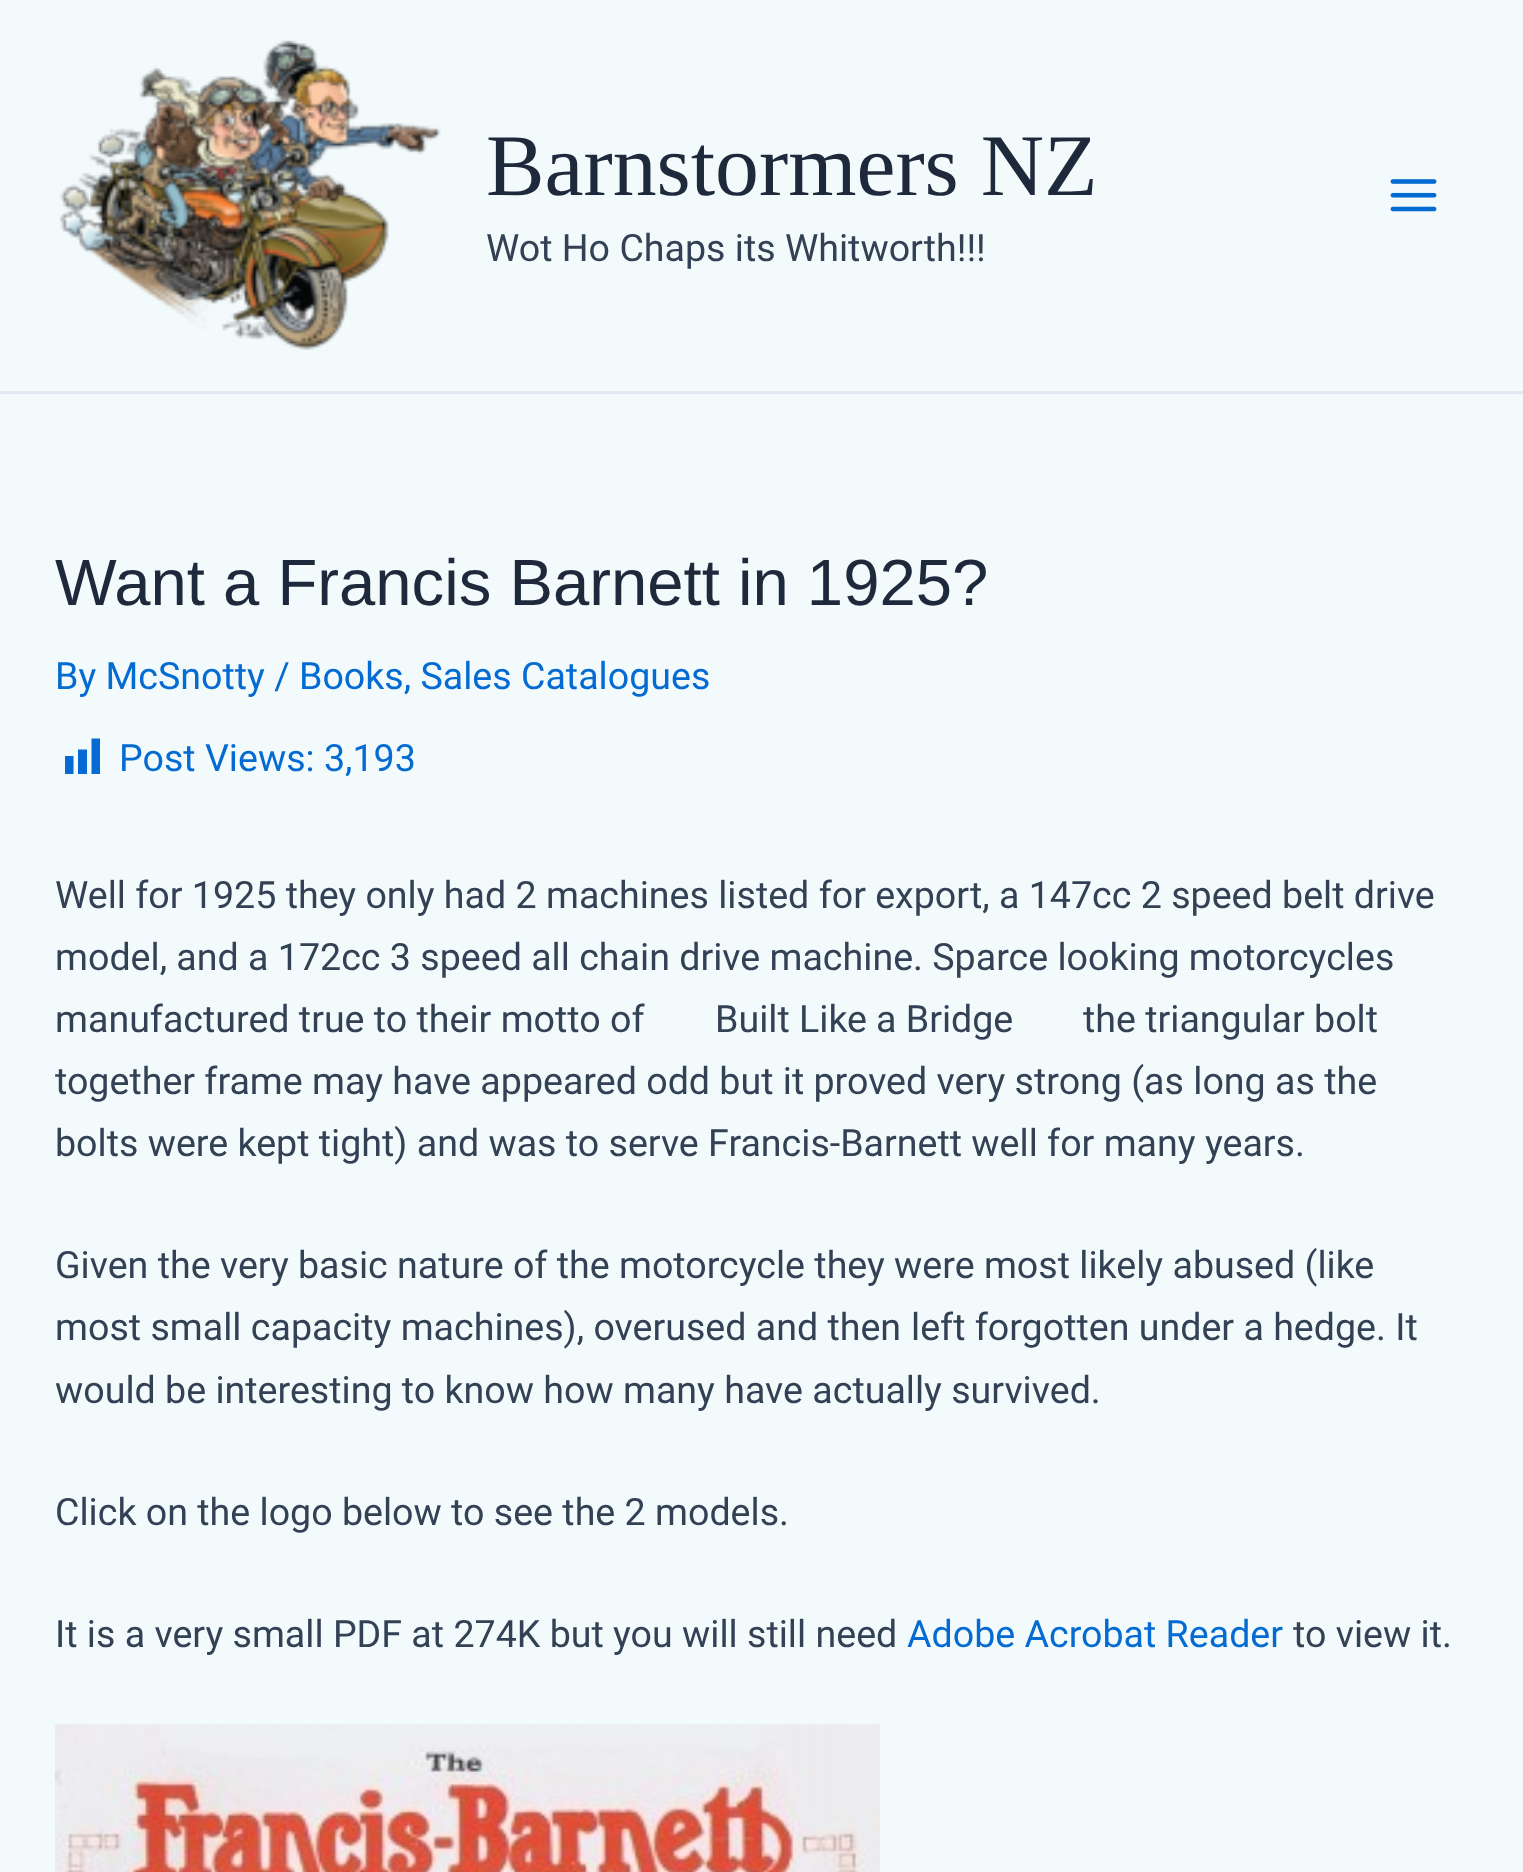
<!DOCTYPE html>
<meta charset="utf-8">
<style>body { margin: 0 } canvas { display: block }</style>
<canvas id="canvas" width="1523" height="1872"></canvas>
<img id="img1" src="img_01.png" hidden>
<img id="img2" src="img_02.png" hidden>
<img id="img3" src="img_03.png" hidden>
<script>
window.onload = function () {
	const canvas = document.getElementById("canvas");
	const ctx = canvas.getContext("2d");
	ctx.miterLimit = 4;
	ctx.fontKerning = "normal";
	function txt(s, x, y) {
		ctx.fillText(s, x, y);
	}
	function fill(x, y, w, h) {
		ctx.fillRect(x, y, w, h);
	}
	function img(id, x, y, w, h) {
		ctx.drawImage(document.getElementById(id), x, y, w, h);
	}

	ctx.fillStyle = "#F2FAFC";
	fill(0, 0, 1523, 1872);
	ctx.fillStyle = "#E2E8F0";
	fill(0, 391, 1523, 3);
	img("img1", 59, 40, 382, 310);
	img("img2", 1390, 179, 47, 33);
	ctx.fillStyle = "#046BD2";
	ctx.beginPath();
	ctx.moveTo(100, 774);
	ctx.lineTo(100, 738.5);
	ctx.lineTo(91.5, 738.5);
	ctx.lineTo(91.5, 774);
	ctx.closePath();
	ctx.moveTo(87, 774);
	ctx.lineTo(87, 749.5);
	ctx.lineTo(78, 749.5);
	ctx.lineTo(78, 774);
	ctx.closePath();
	ctx.moveTo(73.5, 774);
	ctx.lineTo(73.5, 756);
	ctx.lineTo(65, 756);
	ctx.lineTo(65, 774);
	ctx.closePath();
	ctx.fill();
	img("img3", 55, 1724, 825, 148);
	ctx.font = "87.75px Liberation Serif";
	ctx.fillStyle = "#1E293B";
	txt("Barnstormers NZ", 486, 195);
	ctx.font = "37.6px Roboto";
	ctx.fillStyle = "#334155";
	txt("Wot Ho Chaps its Whitworth!!!", 486, 261);
	ctx.font = "65.25px Liberation Sans";
	ctx.fillStyle = "#1E293B";
	txt("Want a Francis Barnett in 1925?", 55, 605);
	ctx.font = "37.6px Roboto";
	ctx.fillStyle = "#046BD2";
	txt("By McSnotty / Books, Sales Catalogues", 55, 689);
	txt("Post Views: 3,193", 119, 771);
	ctx.fillStyle = "#334155";
	txt("Well for 1925 they only had 2 machines listed for export, a 147cc 2 speed belt drive", 55, 908);
	txt("model, and a 172cc 3 speed all chain drive machine. Sparce looking motorcycles", 55, 970);
	txt("manufactured true to their motto of", 55, 1032);
	txt("Built Like", 715, 1032);
	txt("a Bridge", 876, 1032);
	txt("the triangular bolt", 1083, 1032);
	txt("together frame may have appeared odd but it proved very strong (as long as the", 55, 1094);
	txt("bolts were kept tight) and was to serve Francis-Barnett well for many years.", 55, 1156);
	txt("Given the very basic nature of the motorcycle they were most likely abused (like", 55, 1278);
	txt("most small capacity machines), overused and then", 55, 1340);
	txt("left forgotten under a hedge. It", 911, 1340);
	txt("would be interesting to know how many have actually survived.", 55, 1403);
	txt("Click on the logo below to see the 2 models.", 55, 1525);
	txt("It is a very small PDF at 274K but you will still need", 55, 1647);
	ctx.fillStyle = "#046BD2";
	txt("Adobe Acrobat Reader", 907, 1647);
	ctx.fillStyle = "#334155";
	txt("to view it.", 1293, 1647);
};
</script>
